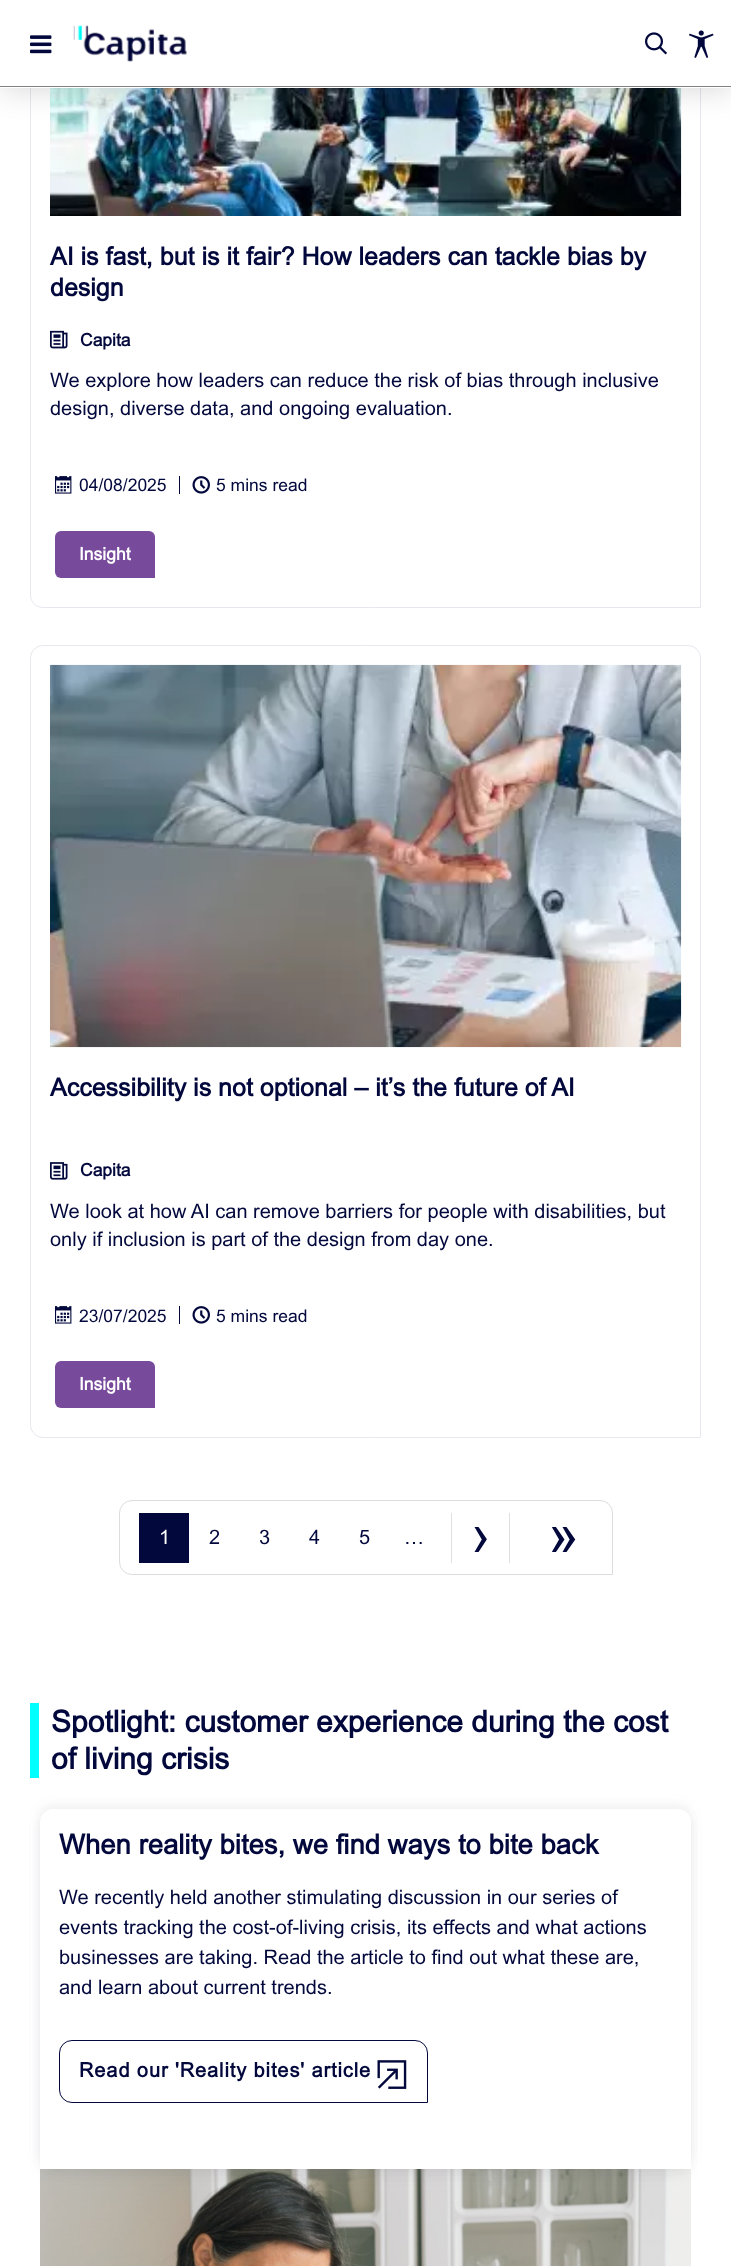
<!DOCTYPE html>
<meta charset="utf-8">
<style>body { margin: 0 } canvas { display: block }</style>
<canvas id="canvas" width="731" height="2266"></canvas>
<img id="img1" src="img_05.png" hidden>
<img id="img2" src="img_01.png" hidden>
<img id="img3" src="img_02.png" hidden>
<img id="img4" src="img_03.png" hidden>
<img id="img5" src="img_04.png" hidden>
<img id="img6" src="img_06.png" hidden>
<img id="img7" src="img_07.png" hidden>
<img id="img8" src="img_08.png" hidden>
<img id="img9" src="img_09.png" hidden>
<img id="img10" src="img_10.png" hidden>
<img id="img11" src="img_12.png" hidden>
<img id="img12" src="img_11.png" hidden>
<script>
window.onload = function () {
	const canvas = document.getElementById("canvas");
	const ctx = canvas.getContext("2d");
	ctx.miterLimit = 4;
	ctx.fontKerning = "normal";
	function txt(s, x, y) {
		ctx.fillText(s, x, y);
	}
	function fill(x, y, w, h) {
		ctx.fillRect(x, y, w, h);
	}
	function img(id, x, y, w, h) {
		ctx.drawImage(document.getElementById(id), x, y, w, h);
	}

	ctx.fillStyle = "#FFFFFF";
	fill(0, 0, 731, 2266);
	ctx.beginPath();
	ctx.moveTo(43, -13.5);
	ctx.lineTo(688, -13.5);
	ctx.bezierCurveTo(695, -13.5, 700.5, -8, 700.5, -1);
	ctx.lineTo(700.5, 607.5);
	ctx.lineTo(43, 607.5);
	ctx.bezierCurveTo(36, 607.5, 30.5, 602, 30.5, 595);
	ctx.lineTo(30.5, -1);
	ctx.bezierCurveTo(30.5, -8, 36, -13.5, 43, -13.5);
	ctx.closePath();
	ctx.strokeStyle = "#E6E8EE";
	ctx.stroke();
	img("img1", 50, 88, 632, 128);
	ctx.fillStyle = "rgba(0, 0, 0, 0.16)";
	ctx.filter = "blur(15.5px)";
	ctx.beginPath();
	ctx.rect(1, 1, 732, 88);
	ctx.fill();
	ctx.filter = "none";
	ctx.fillStyle = "#FFFFFF";
	fill(0, 0, 731, 88);
	ctx.fillStyle = "#828282";
	fill(0, 86, 731, 1);
	img("img2", 30, 35, 22, 19);
	img("img3", 73, 25, 114, 37);
	img("img4", 645, 32, 22, 23);
	img("img5", 689, 30, 25, 28);
	img("img6", 50, 330, 18, 19);
	img("img7", 55, 476, 17, 18);
	ctx.fillStyle = "#02083C";
	fill(179, 476, 1, 18);
	img("img8", 192, 476, 18, 18);
	ctx.fillStyle = "#784A9B";
	ctx.beginPath();
	ctx.roundRect(55, 531, 100, 47, [6, 6, 0, 6]);
	ctx.fill();
	ctx.beginPath();
	ctx.roundRect(30.5, 645.5, 670, 792, [12.5, 12.5, 0, 12.5]);
	ctx.stroke();
	img("img9", 50, 664, 632, 384);
	img("img10", 50, 1162, 18, 18);
	img("img7", 55, 1306, 17, 18);
	ctx.fillStyle = "#02083C";
	fill(179, 1306, 1, 18);
	img("img8", 192, 1306, 18, 18);
	ctx.fillStyle = "#784A9B";
	ctx.beginPath();
	ctx.roundRect(55, 1361, 100, 47, [6, 6, 0, 6]);
	ctx.fill();
	ctx.beginPath();
	ctx.roundRect(119.5, 1500.5, 493, 74, [12.5, 12.5, 0, 12.5]);
	ctx.strokeStyle = "#DDDDDD";
	ctx.stroke();
	ctx.fillStyle = "#02083C";
	fill(139, 1513, 50, 50);
	ctx.fillStyle = "#DFDFDF";
	fill(509, 1513, 1, 50);
	fill(451, 1513, 1, 50);
	ctx.fillStyle = "#00FFFF";
	fill(30, 1703, 9, 75);
	img("img11", 40, 2169, 651, 97);
	ctx.fillStyle = "rgba(100, 100, 111, 0.09)";
	ctx.filter = "blur(6px)";
	ctx.beginPath();
	ctx.roundRect(40, 1805, 651, 360, 13);
	ctx.fill();
	ctx.filter = "none";
	ctx.filter = "blur(6px)";
	ctx.beginPath();
	ctx.roundRect(40, 1815, 651, 360, 13);
	ctx.fill();
	ctx.filter = "none";
	ctx.fillStyle = "#FFFFFF";
	ctx.beginPath();
	ctx.roundRect(40, 1809, 651, 360, [13, 13, 0, 0]);
	ctx.fill();
	ctx.beginPath();
	ctx.roundRect(59.5, 2040.5, 368, 62, [12.5, 12.5, 0, 12.5]);
	ctx.strokeStyle = "#02083C";
	ctx.stroke();
	img("img12", 377, 2060, 30, 29);
	ctx.font = "bold 25px Arial";
	ctx.fillStyle = "#02083C";
	txt("AI is fast, but is it fair? How leaders can tackle bias by", 50, 265);
	txt("design", 50, 296);
	ctx.font = "bold 17.5px Arial";
	txt("Capita", 80, 346);
	ctx.font = "20px Arial";
	txt("We explore how leaders can reduce the risk of bias through inclusive", 50, 387);
	txt("design, diverse data, and ongoing evaluation.", 50, 415);
	ctx.font = "17.5px Arial";
	txt("04/08/2025", 79, 491);
	txt("5 mins read", 216, 491);
	ctx.font = "bold 17.5px Arial";
	ctx.fillStyle = "#FFFFFF";
	txt("Insight", 79, 560);
	ctx.font = "bold 25px Arial";
	ctx.fillStyle = "#02083C";
	txt("Accessibility is not optional – it’s the future of AI", 50, 1096);
	ctx.font = "bold 17.5px Arial";
	txt("Capita", 80, 1176);
	ctx.font = "20px Arial";
	txt("We look at how AI can remove barriers for people with disabilities, but", 50, 1218);
	txt("only if inclusion is part of the design from day one.", 50, 1246);
	ctx.font = "17.5px Arial";
	txt("23/07/2025", 79, 1322);
	txt("5 mins read", 216, 1322);
	ctx.font = "bold 17.5px Arial";
	ctx.fillStyle = "#FFFFFF";
	txt("Insight", 79, 1390);
	ctx.font = "20px Arial";
	txt("1", 159, 1544);
	ctx.fillStyle = "#02083C";
	txt("2", 209, 1544);
	txt("3", 259, 1544);
	txt("4", 309, 1544);
	txt("5", 359, 1544);
	txt("…", 404, 1544);
	ctx.font = "56px Arial";
	txt("›", 472, 1554);
	txt("»", 548, 1554);
	ctx.font = "bold 30px Arial";
	txt("Spotlight: customer experience during the cost", 51, 1732);
	txt("of living crisis", 51, 1769);
	ctx.font = "bold 27.5px Arial";
	txt("When reality bites, we find ways to bite back", 59, 1854);
	ctx.font = "20px Arial";
	txt("We recently held another stimulating discussion in our series of", 59, 1904);
	txt("events tracking the cost-of-living crisis, its effects and what actions", 59, 1934);
	txt("businesses are taking. Read the article to find out what these are,", 59, 1964);
	txt("and learn about current trends.", 59, 1994);
	ctx.letterSpacing = "0.9px";
	ctx.font = "bold 20px Arial";
	txt("Read our 'Reality bites' article", 79, 2077);
};
</script>
